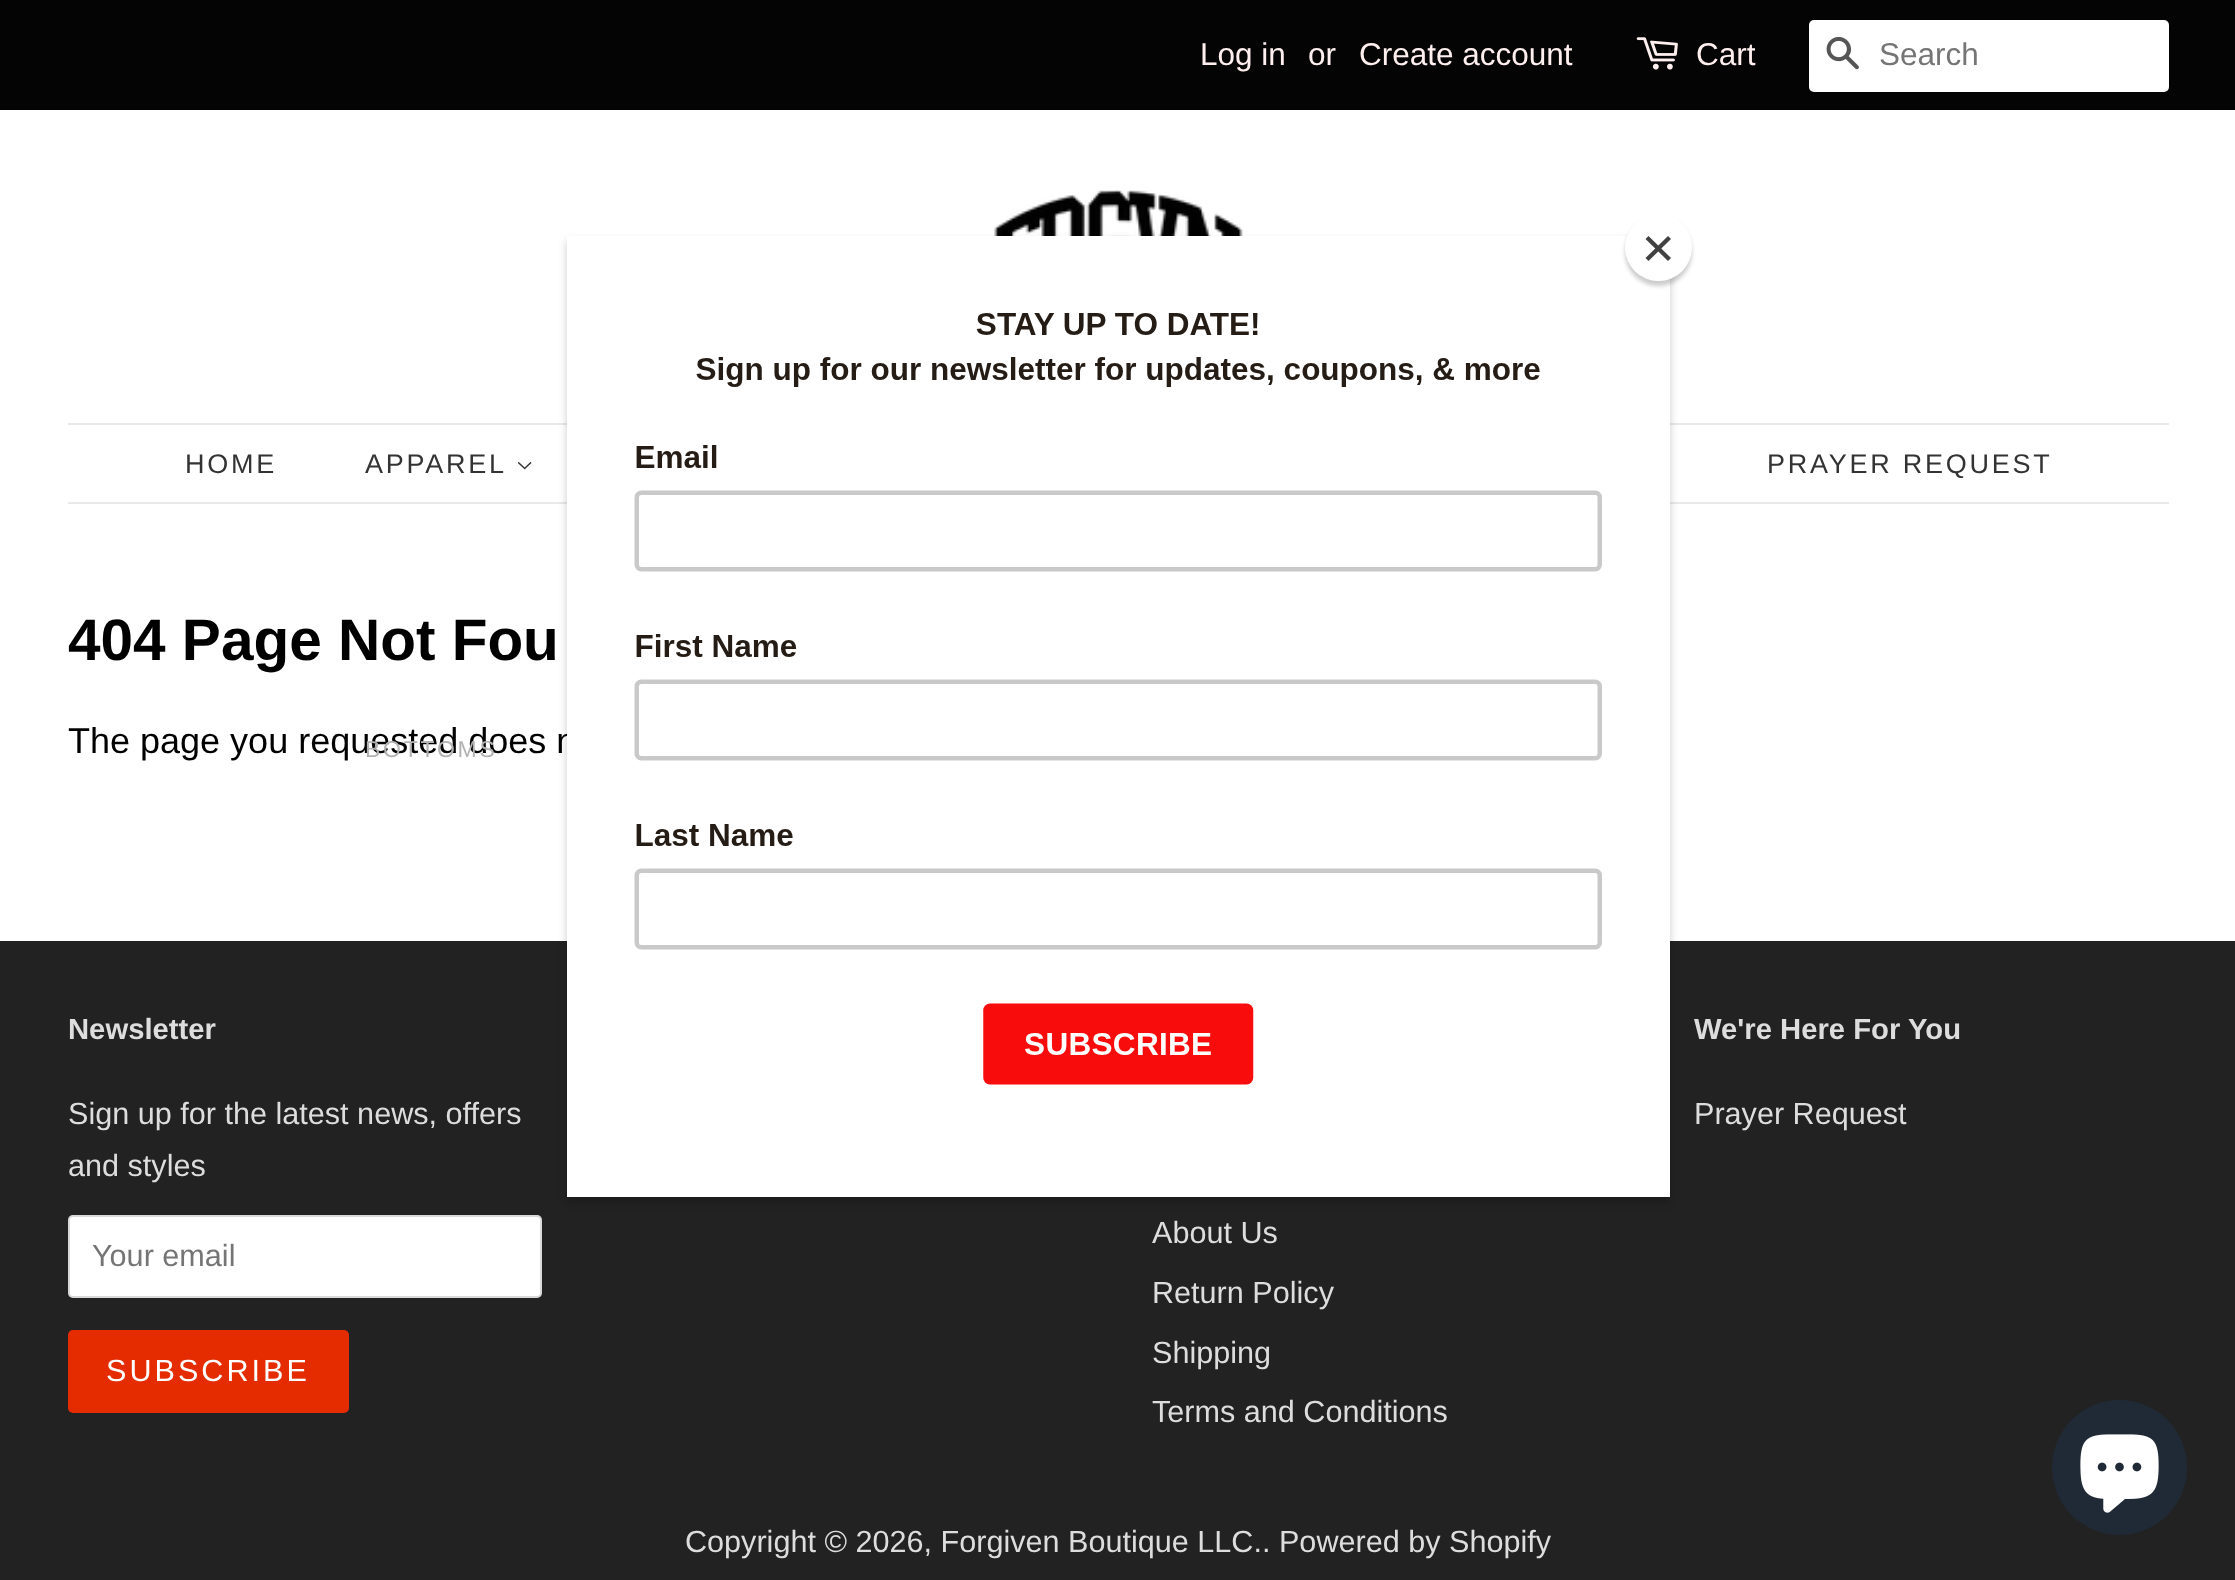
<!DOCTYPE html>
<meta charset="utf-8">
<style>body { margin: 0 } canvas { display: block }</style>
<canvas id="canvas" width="2235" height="1580"></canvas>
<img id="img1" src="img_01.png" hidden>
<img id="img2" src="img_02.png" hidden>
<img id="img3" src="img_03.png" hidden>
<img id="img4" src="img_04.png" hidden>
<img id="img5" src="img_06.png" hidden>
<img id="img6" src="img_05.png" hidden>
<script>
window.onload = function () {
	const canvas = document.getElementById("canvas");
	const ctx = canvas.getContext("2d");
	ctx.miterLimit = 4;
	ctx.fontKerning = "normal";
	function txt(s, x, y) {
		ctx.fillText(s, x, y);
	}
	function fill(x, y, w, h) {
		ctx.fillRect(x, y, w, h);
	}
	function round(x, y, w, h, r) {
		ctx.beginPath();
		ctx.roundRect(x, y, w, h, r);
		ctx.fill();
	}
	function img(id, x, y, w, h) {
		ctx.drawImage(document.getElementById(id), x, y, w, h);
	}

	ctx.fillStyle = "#FFFFFF";
	fill(0, 0, 2235, 1580);
	ctx.fillStyle = "#040404";
	fill(0, 0, 2235, 110);
	img("img1", 1636, 37, 42, 33);
	ctx.fillStyle = "#FFFFFF";
	round(1809, 20, 360, 72, 5);
	img("img2", 1826, 36, 33, 34);
	img("img3", 994, 190, 249, 46);
	ctx.fillStyle = "#EAE8E8";
	fill(68, 423, 2101, 2);
	fill(68, 502, 2101, 2);
	img("img4", 518, 461, 14, 9);
	ctx.fillStyle = "#222222";
	fill(0, 941, 2235, 639);
	ctx.fillStyle = "rgba(0, 0, 0, 0.2)";
	ctx.filter = "blur(4.5px)";
	ctx.beginPath();
	ctx.rect(567, 241, 1103, 961);
	ctx.fill();
	ctx.filter = "none";
	ctx.fillStyle = "#FFFFFF";
	round(68, 1215, 474, 83, 5);
	ctx.beginPath();
	ctx.roundRect(69, 1216, 472, 81, 4);
	ctx.strokeStyle = "rgba(0, 0, 0, 0.15)";
	ctx.lineWidth = 2;
	ctx.stroke();
	ctx.fillStyle = "#E42C00";
	round(68, 1330, 281, 83, 5);
	ctx.fillStyle = "#202A36";
	ctx.beginPath();
	ctx.arc(2119.5, 1467.5, 67.5, 0, Math.PI * 2);
	ctx.fill();
	img("img5", 2080, 1434, 79, 79);
	ctx.font = "31.5px Liberation Sans";
	ctx.fillStyle = "#FFEFEF";
	txt("Log in", 1200, 65);
	txt("or", 1308, 65);
	txt("Create account", 1359, 65);
	txt("Cart", 1696, 65);
	ctx.fillStyle = "#757575";
	txt("Search", 1879, 65);
	ctx.letterSpacing = "2.75px";
	ctx.font = "27px Liberation Sans";
	ctx.fillStyle = "#333333";
	txt("HOME", 185, 473);
	txt("APPAREL", 365, 473);
	txt("PRAYER REQUEST", 1767, 473);
	ctx.letterSpacing = "0px";
	ctx.font = "bold 58.5px Liberation Sans";
	ctx.fillStyle = "#000000";
	txt("404 Page Not Fou", 68, 660);
	ctx.font = "36px Liberation Sans";
	txt("The page you requested does n", 68, 753);
	ctx.letterSpacing = "2.75px";
	ctx.font = "23px Liberation Sans";
	ctx.fillStyle = "#B3B3B3";
	txt("BOTTOMS", 365, 757);
	img("img6", 567, 236, 1103, 961);
	ctx.fillStyle = "rgba(0, 0, 0, 0.2)";
	ctx.filter = "blur(2px)";
	ctx.beginPath();
	ctx.roundRect(1625, 218, 67, 68, 33.5);
	ctx.fill();
	ctx.filter = "none";
	ctx.fillStyle = "#FFFFFF";
	ctx.beginPath();
	ctx.arc(1658.5, 247.5, 33.5, 0, Math.PI * 2);
	ctx.fill();
	ctx.fillStyle = "#414141";
	ctx.beginPath();
	ctx.moveTo(1668, 236);
	ctx.lineTo(1671, 239);
	ctx.lineTo(1648.5, 261);
	ctx.lineTo(1645.5, 258);
	ctx.closePath();
	ctx.fill();
	ctx.beginPath();
	ctx.moveTo(1645.5, 239);
	ctx.lineTo(1648.5, 236);
	ctx.lineTo(1671, 258);
	ctx.lineTo(1668, 261);
	ctx.closePath();
	ctx.fill();
	ctx.letterSpacing = "0px";
	ctx.font = "bold 29.25px Liberation Sans";
	ctx.fillStyle = "#DDDDDD";
	txt("Newsletter", 68, 1039);
	ctx.font = "30.6px Liberation Sans";
	txt("Sign up for the latest news, offers", 68, 1124);
	txt("and styles", 68, 1176);
	ctx.fillStyle = "#757575";
	txt("Your email", 92, 1266);
	ctx.letterSpacing = "3px";
	ctx.fillStyle = "#FFFFFF";
	txt("SUBSCRIBE", 106, 1381);
	ctx.letterSpacing = "0px";
	ctx.font = "bold 29.25px Liberation Sans";
	ctx.fillStyle = "#DDDDDD";
	txt("We're Here For You", 1694, 1039);
	ctx.font = "30.6px Liberation Sans";
	txt("Prayer Request", 1694, 1124);
	txt("About Us", 1152, 1243);
	txt("Return Policy", 1152, 1303);
	txt("Shipping", 1152, 1363);
	txt("Terms and Conditions", 1152, 1422);
	txt("Copyright © 2026, Forgiven Boutique LLC.. Powered by Shopify", 685, 1552);
};
</script>
